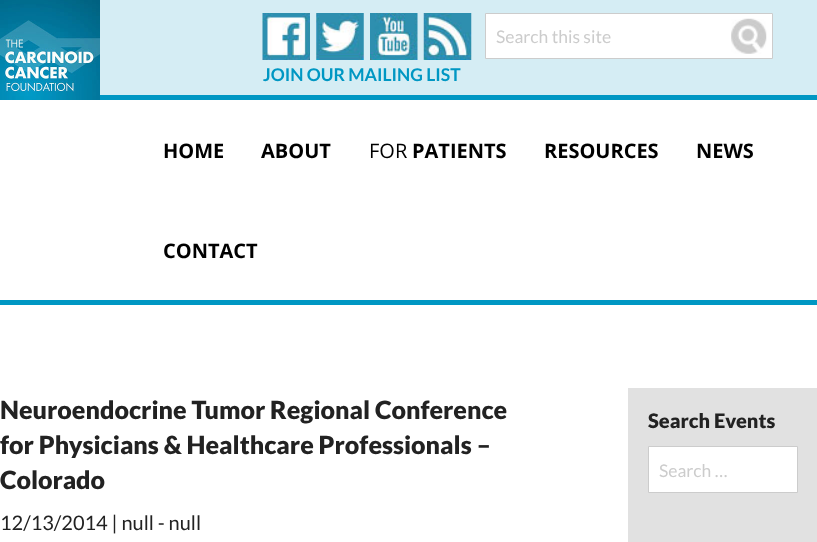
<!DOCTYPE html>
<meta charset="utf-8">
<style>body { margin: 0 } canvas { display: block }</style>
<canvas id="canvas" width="817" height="542"></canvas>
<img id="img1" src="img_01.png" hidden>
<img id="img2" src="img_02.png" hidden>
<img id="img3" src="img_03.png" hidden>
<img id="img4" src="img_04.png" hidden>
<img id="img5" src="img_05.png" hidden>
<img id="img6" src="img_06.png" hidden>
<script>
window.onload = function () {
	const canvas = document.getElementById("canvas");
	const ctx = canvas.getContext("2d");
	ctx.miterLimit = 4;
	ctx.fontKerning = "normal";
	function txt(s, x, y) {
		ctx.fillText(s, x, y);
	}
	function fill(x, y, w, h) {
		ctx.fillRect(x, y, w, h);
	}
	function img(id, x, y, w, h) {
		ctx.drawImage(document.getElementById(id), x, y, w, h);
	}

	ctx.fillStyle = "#FFFFFF";
	fill(0, 0, 817, 542);
	ctx.fillStyle = "#D5EDF4";
	fill(100, 0, 717, 95);
	ctx.fillStyle = "#0097C3";
	fill(100, 95, 717, 5);
	img("img1", 0, 0, 100, 100);
	ctx.fillStyle = "#FFFFFF";
	ctx.beginPath();
	ctx.rect(485.5, 13.5, 287, 45);
	ctx.fill();
	ctx.strokeStyle = "#CCCCCC";
	ctx.stroke();
	img("img2", 731, 18, 36, 36);
	img("img3", 262, 13, 48, 47);
	img("img4", 316, 13, 48, 47);
	img("img5", 370, 13, 48, 47);
	img("img6", 423, 13, 49, 47);
	ctx.fillStyle = "#0097C3";
	fill(0, 300, 817, 5);
	ctx.fillStyle = "#E1E1E1";
	fill(628, 388, 189, 154);
	ctx.fillStyle = "#FFFFFF";
	ctx.beginPath();
	ctx.rect(648.5, 446.5, 149, 46);
	ctx.fill();
	ctx.stroke();
	ctx.font = "17.5px Lato";
	ctx.fillStyle = "#CCCCCC";
	txt("Search this site", 496, 43);
	ctx.font = "bold 17.5px Lato";
	ctx.fillStyle = "#0097C3";
	txt("JOIN OUR MAILING LIST", 263, 81);
	ctx.font = "bold 20px Open Sans";
	ctx.fillStyle = "#000000";
	txt("HOME", 163, 158);
	txt("ABOUT", 261, 158);
	ctx.font = "20px Open Sans";
	txt("FOR", 369, 158);
	ctx.font = "bold 20px Open Sans";
	txt("PATIENTS", 412, 158);
	txt("RESOURCES", 544, 158);
	txt("NEWS", 696, 158);
	txt("CONTACT", 163, 258);
	ctx.font = "900 25px Lato";
	ctx.fillStyle = "#222222";
	txt("Neuroendocrine Tumor Regional Conference", 0, 419);
	txt("for Physicians & Healthcare Professionals –", 0, 454);
	txt("Colorado", 0, 489);
	ctx.font = "20px Lato";
	txt("12/13/2014 | null - null", 0, 530);
	ctx.font = "900 20px Lato";
	txt("Search Events", 648, 428);
	ctx.font = "17.5px Lato";
	ctx.fillStyle = "#CCCCCC";
	txt("Search …", 659, 477);
};
</script>
